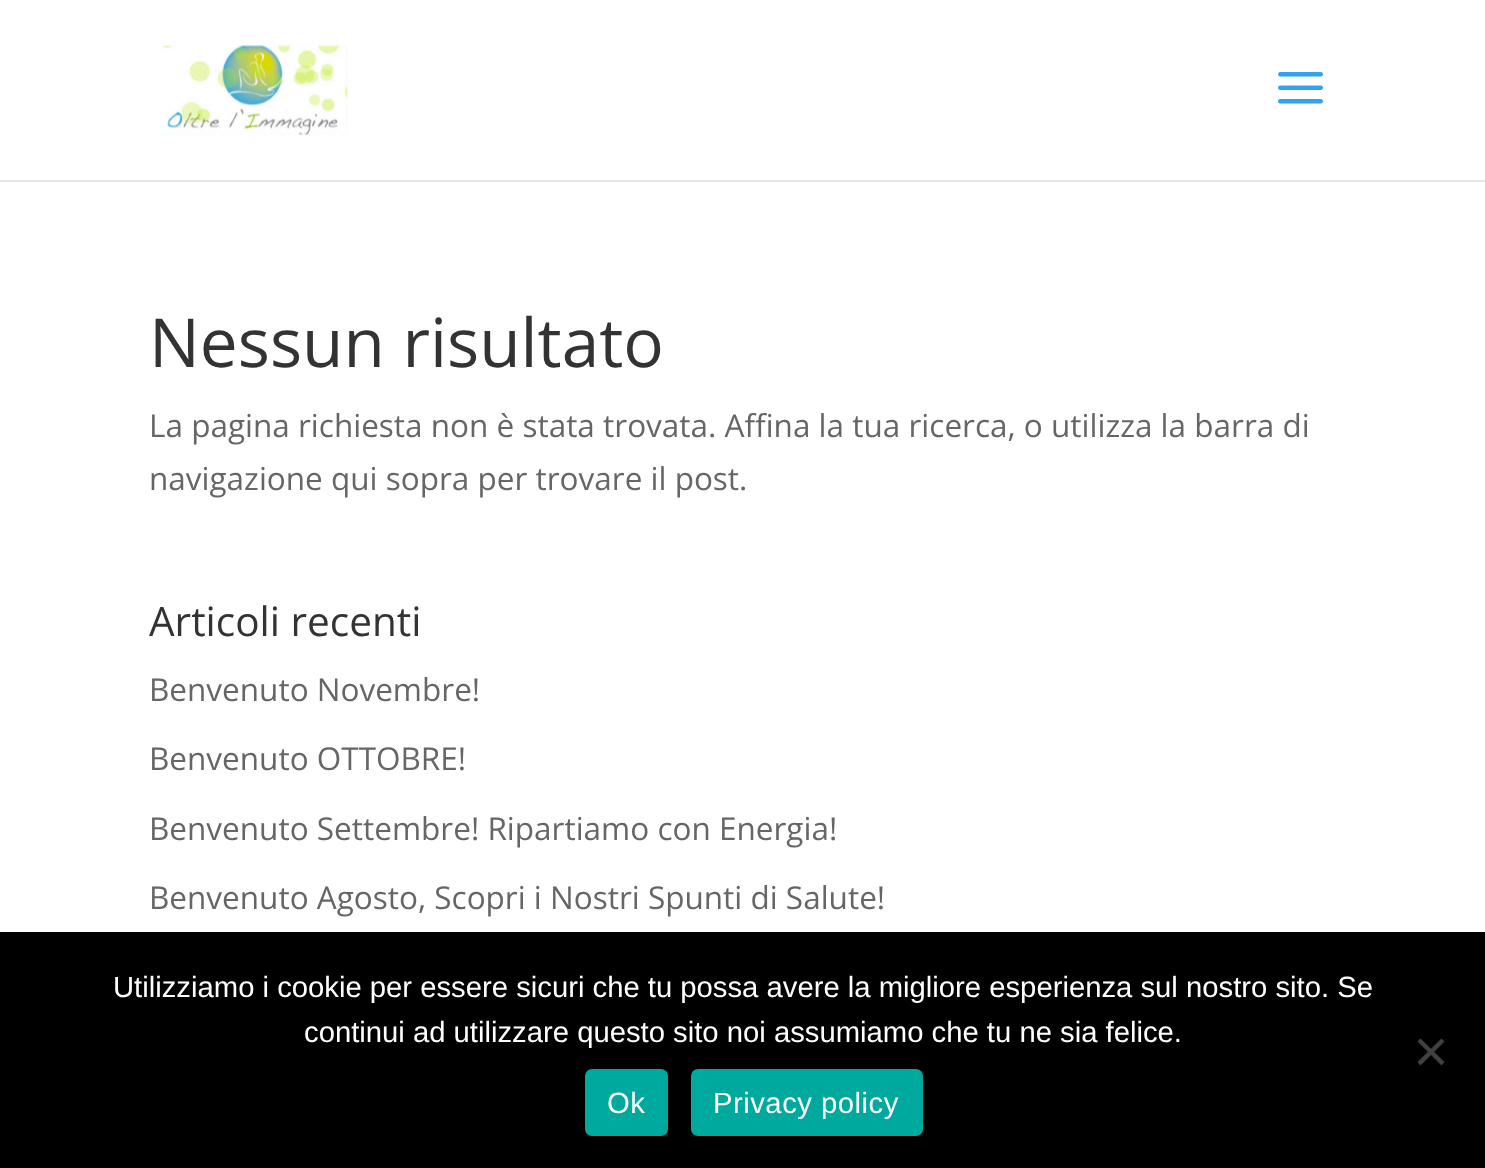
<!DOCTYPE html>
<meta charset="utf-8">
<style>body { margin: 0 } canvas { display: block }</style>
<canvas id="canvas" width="1485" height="1168"></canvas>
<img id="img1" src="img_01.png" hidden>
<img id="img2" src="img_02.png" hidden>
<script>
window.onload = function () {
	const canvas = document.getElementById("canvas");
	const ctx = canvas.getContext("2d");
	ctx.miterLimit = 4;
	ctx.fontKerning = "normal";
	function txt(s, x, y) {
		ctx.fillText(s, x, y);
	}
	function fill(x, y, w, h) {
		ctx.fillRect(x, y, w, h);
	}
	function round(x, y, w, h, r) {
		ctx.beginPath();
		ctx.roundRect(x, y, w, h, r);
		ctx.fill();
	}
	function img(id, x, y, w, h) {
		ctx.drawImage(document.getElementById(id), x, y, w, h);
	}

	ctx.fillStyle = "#FFFFFF";
	fill(0, 0, 1485, 1168);
	ctx.fillStyle = "#E6E6E6";
	fill(0, 180, 1485, 2);
	img("img1", 161, 45, 187, 91);
	img("img2", 1278, 72, 45, 32);
	ctx.fillStyle = "#000000";
	fill(0, 932, 1485, 236);
	ctx.fillStyle = "#404040";
	ctx.beginPath();
	ctx.moveTo(1441.5, 1038.5);
	ctx.lineTo(1444.5, 1041.5);
	ctx.lineTo(1420.5, 1065.5);
	ctx.lineTo(1417.5, 1062);
	ctx.closePath();
	ctx.fill();
	ctx.beginPath();
	ctx.moveTo(1417.5, 1041.5);
	ctx.lineTo(1420.5, 1038.5);
	ctx.lineTo(1444.5, 1062);
	ctx.lineTo(1441.5, 1065.5);
	ctx.closePath();
	ctx.fill();
	ctx.fillStyle = "#00A99D";
	round(585, 1069, 83, 67, 7);
	round(691, 1069, 232, 67, 7);
	ctx.font = "67.5px Open Sans";
	ctx.fillStyle = "#333333";
	txt("Nessun risultato", 149, 367);
	ctx.font = "31.5px Open Sans";
	ctx.fillStyle = "#666666";
	txt("La pagina richiesta non è stata trovata. Affina la tua ricerca, o utilizza la barra di", 149, 437);
	txt("navigazione qui sopra per trovare il post.", 149, 490);
	ctx.font = "40.5px Open Sans";
	ctx.fillStyle = "#333333";
	txt("Articoli recenti", 149, 636);
	ctx.font = "31.5px Open Sans";
	ctx.fillStyle = "#666666";
	txt("Benvenuto Novembre!", 149, 701);
	txt("Benvenuto OTTOBRE!", 149, 770);
	txt("Benvenuto Settembre! Ripartiamo con Energia!", 149, 840);
	txt("Benvenuto Agosto, Scopri i Nostri Spunti di Salute!", 149, 909);
	ctx.font = "29.25px Liberation Sans";
	ctx.fillStyle = "#FFFFFF";
	txt("Utilizziamo i cookie per essere sicuri che tu possa avere la migliore esperienza sul nostro sito. Se", 113, 997);
	txt("continui ad utilizzare questo sito noi assumiamo che tu ne sia felice.", 304, 1042);
	ctx.letterSpacing = "0.5px";
	txt("Ok", 607, 1113);
	txt("Privacy policy", 713, 1113);
};
</script>
